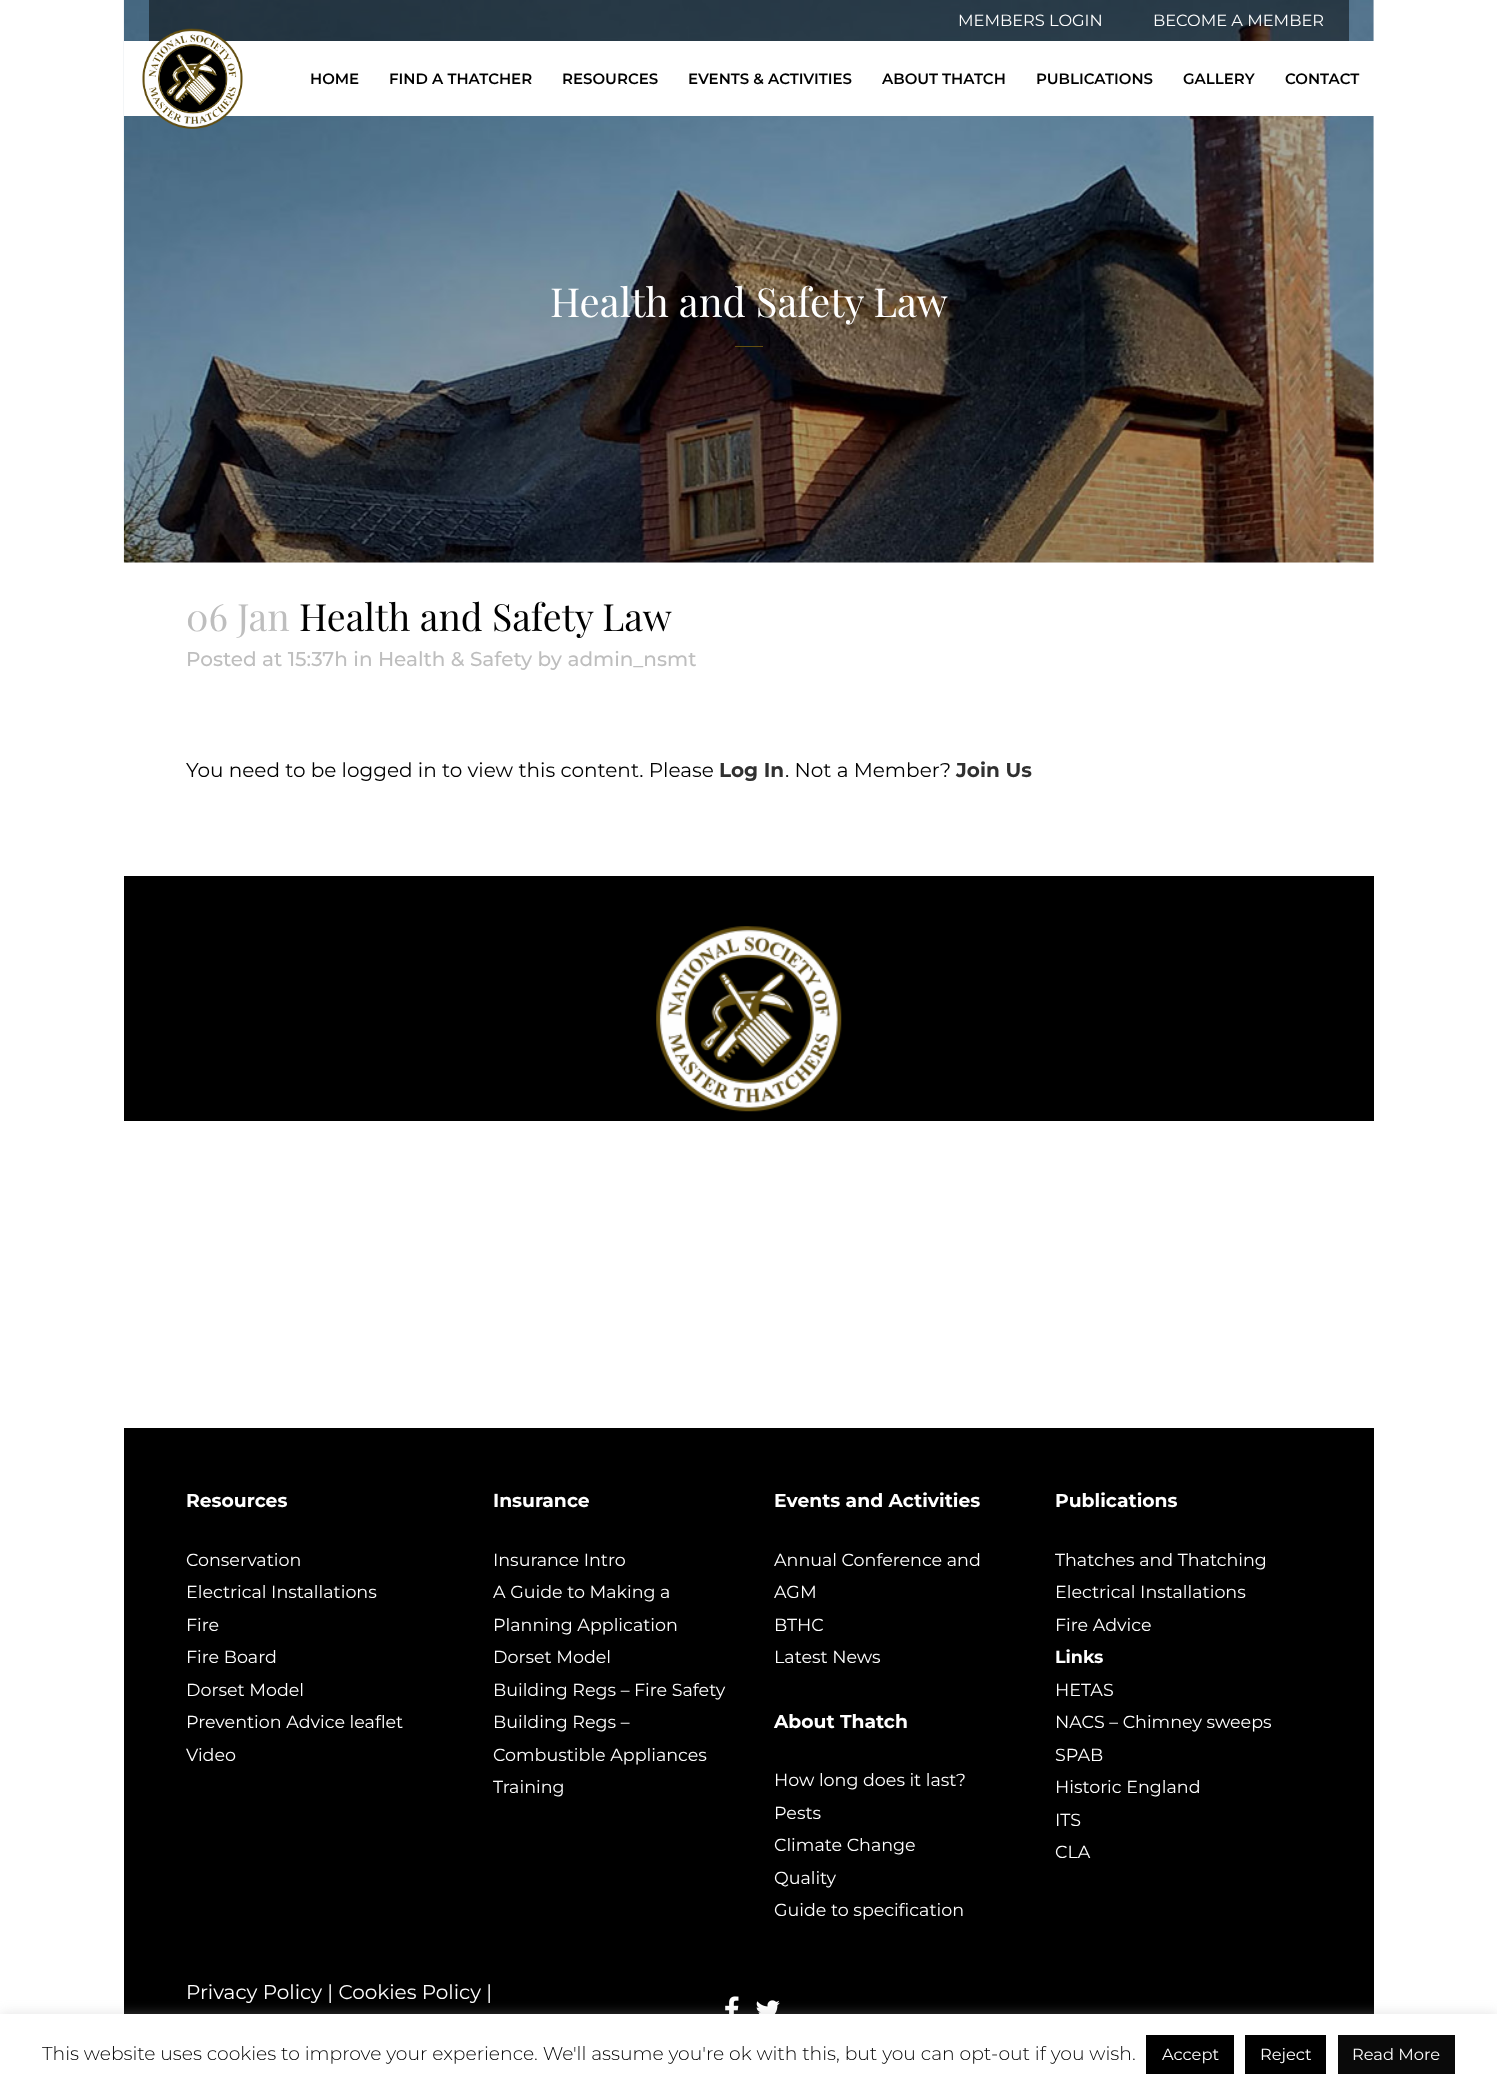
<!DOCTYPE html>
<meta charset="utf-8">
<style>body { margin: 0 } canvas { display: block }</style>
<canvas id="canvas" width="1497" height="2088"></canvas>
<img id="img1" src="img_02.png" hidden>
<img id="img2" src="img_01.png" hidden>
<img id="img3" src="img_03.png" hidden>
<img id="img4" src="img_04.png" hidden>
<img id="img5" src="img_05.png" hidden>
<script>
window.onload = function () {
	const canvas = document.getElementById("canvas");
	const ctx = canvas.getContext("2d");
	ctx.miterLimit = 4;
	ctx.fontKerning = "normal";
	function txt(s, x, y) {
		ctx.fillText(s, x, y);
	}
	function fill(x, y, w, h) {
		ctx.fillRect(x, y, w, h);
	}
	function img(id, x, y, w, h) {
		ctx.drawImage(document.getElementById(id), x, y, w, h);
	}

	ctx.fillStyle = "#FFFFFF";
	fill(0, 0, 1497, 2088);
	img("img1", 123, 0, 1251, 563);
	ctx.fillStyle = "rgba(0, 0, 0, 0.5)";
	fill(149, 0, 1200, 41);
	ctx.fillStyle = "#FFFFFF";
	fill(124, 41, 1250, 75);
	img("img2", 142, 28, 101, 101);
	ctx.fillStyle = "#644F10";
	fill(735, 346, 28, 1);
	ctx.fillStyle = "#000000";
	fill(124, 876, 1250, 245);
	img("img3", 656, 926, 186, 186);
	fill(124, 1428, 1250, 586);
	img("img4", 725, 1996, 14, 18);
	img("img5", 756, 2000, 24, 14);
	ctx.fillStyle = "rgba(172, 171, 171, 0.3)";
	ctx.filter = "blur(6px)";
	ctx.beginPath();
	ctx.rect(0, 2013, 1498, 75);
	ctx.fill();
	ctx.filter = "none";
	ctx.fillStyle = "#FFFFFF";
	fill(0, 2014, 1497, 74);
	ctx.fillStyle = "#000000";
	fill(1146, 2035, 88, 39);
	fill(1245, 2035, 81, 39);
	ctx.fillStyle = "#0A0A0A";
	fill(1338, 2035, 117, 39);
	ctx.font = "16.25px Montserrat";
	ctx.fillStyle = "#FFFFFF";
	txt("MEMBERS LOGIN", 958, 26);
	txt("BECOME A MEMBER", 1153, 26);
	ctx.font = "600 15px Montserrat";
	ctx.fillStyle = "#000000";
	txt("HOME", 310, 84);
	txt("FIND A THATCHER", 389, 84);
	txt("RESOURCES", 562, 84);
	txt("EVENTS & ACTIVITIES", 688, 84);
	txt("ABOUT THATCH", 882, 84);
	txt("PUBLICATIONS", 1036, 84);
	txt("GALLERY", 1183, 84);
	txt("CONTACT", 1285, 84);
	ctx.font = "40px Playfair Display";
	ctx.fillStyle = "#FFFFFF";
	txt("Health and Safety Law", 550, 317);
	ctx.font = "37.5px Playfair Display";
	ctx.fillStyle = "#BEBEBE";
	txt("06 Jan", 186, 631);
	ctx.fillStyle = "#000000";
	txt("Health and Safety Law", 299, 631);
	ctx.font = "500 20px Montserrat";
	ctx.fillStyle = "#BEBEBE";
	txt("Posted at 15:37h in Health & Safety by admin_nsmt", 186, 666);
	ctx.font = "20px Montserrat";
	ctx.fillStyle = "#000000";
	txt("You need to be logged in to view this content. Please", 186, 777);
	ctx.font = "bold 20px Montserrat";
	ctx.fillStyle = "#303030";
	txt("Log In", 719, 777);
	ctx.font = "20px Montserrat";
	ctx.fillStyle = "#000000";
	txt(". Not a Member?", 785, 777);
	ctx.font = "bold 20px Montserrat";
	ctx.fillStyle = "#303030";
	txt("Join Us", 956, 777);
	ctx.font = "bold 18.75px Montserrat";
	ctx.fillStyle = "#FFFFFF";
	txt("Resources", 186, 1507);
	ctx.font = "17.5px Montserrat";
	txt("Conservation", 186, 1566);
	txt("Electrical Installations", 186, 1598);
	txt("Fire", 186, 1631);
	txt("Fire Board", 186, 1663);
	txt("Dorset Model", 186, 1696);
	txt("Prevention Advice leaflet", 186, 1728);
	txt("Video", 186, 1761);
	ctx.font = "bold 18.75px Montserrat";
	txt("Insurance", 493, 1507);
	ctx.font = "17.5px Montserrat";
	txt("Insurance Intro", 493, 1566);
	txt("A Guide to Making a", 493, 1598);
	txt("Planning Application", 493, 1631);
	txt("Dorset Model", 493, 1663);
	txt("Building Regs – Fire Safety", 493, 1696);
	txt("Building Regs –", 493, 1728);
	txt("Combustible Appliances", 493, 1761);
	txt("Training", 493, 1793);
	ctx.font = "bold 18.75px Montserrat";
	txt("Events and Activities", 774, 1507);
	ctx.font = "17.5px Montserrat";
	txt("Annual Conference and", 774, 1566);
	txt("AGM", 774, 1598);
	txt("BTHC", 774, 1631);
	txt("Latest News", 774, 1663);
	ctx.font = "bold 18.75px Montserrat";
	txt("About Thatch", 774, 1728);
	ctx.font = "17.5px Montserrat";
	txt("How long does it last?", 774, 1786);
	txt("Pests", 774, 1819);
	txt("Climate Change", 774, 1851);
	txt("Quality", 774, 1884);
	txt("Guide to specification", 774, 1916);
	ctx.font = "bold 18.75px Montserrat";
	txt("Publications", 1055, 1507);
	ctx.font = "17.5px Montserrat";
	txt("Thatches and Thatching", 1055, 1566);
	txt("Electrical Installations", 1055, 1598);
	txt("Fire Advice", 1055, 1631);
	ctx.font = "bold 17.5px Montserrat";
	txt("Links", 1055, 1663);
	ctx.font = "17.5px Montserrat";
	txt("HETAS", 1055, 1696);
	txt("NACS – Chimney sweeps", 1055, 1728);
	txt("SPAB", 1055, 1761);
	txt("Historic England", 1055, 1793);
	txt("ITS", 1055, 1826);
	txt("CLA", 1055, 1858);
	ctx.font = "20px Montserrat";
	txt("Privacy Policy | Cookies Policy |", 186, 1999);
	ctx.font = "300 18.75px Montserrat";
	ctx.fillStyle = "#000000";
	txt("This website uses cookies to improve your experience. We'll assume you're ok with this, but you can opt-out if you wish.", 42, 2060);
	ctx.font = "16.25px Montserrat";
	ctx.fillStyle = "#FFFFFF";
	txt("Accept", 1162, 2060);
	txt("Reject", 1260, 2060);
	txt("Read More", 1352, 2060);
};
</script>
